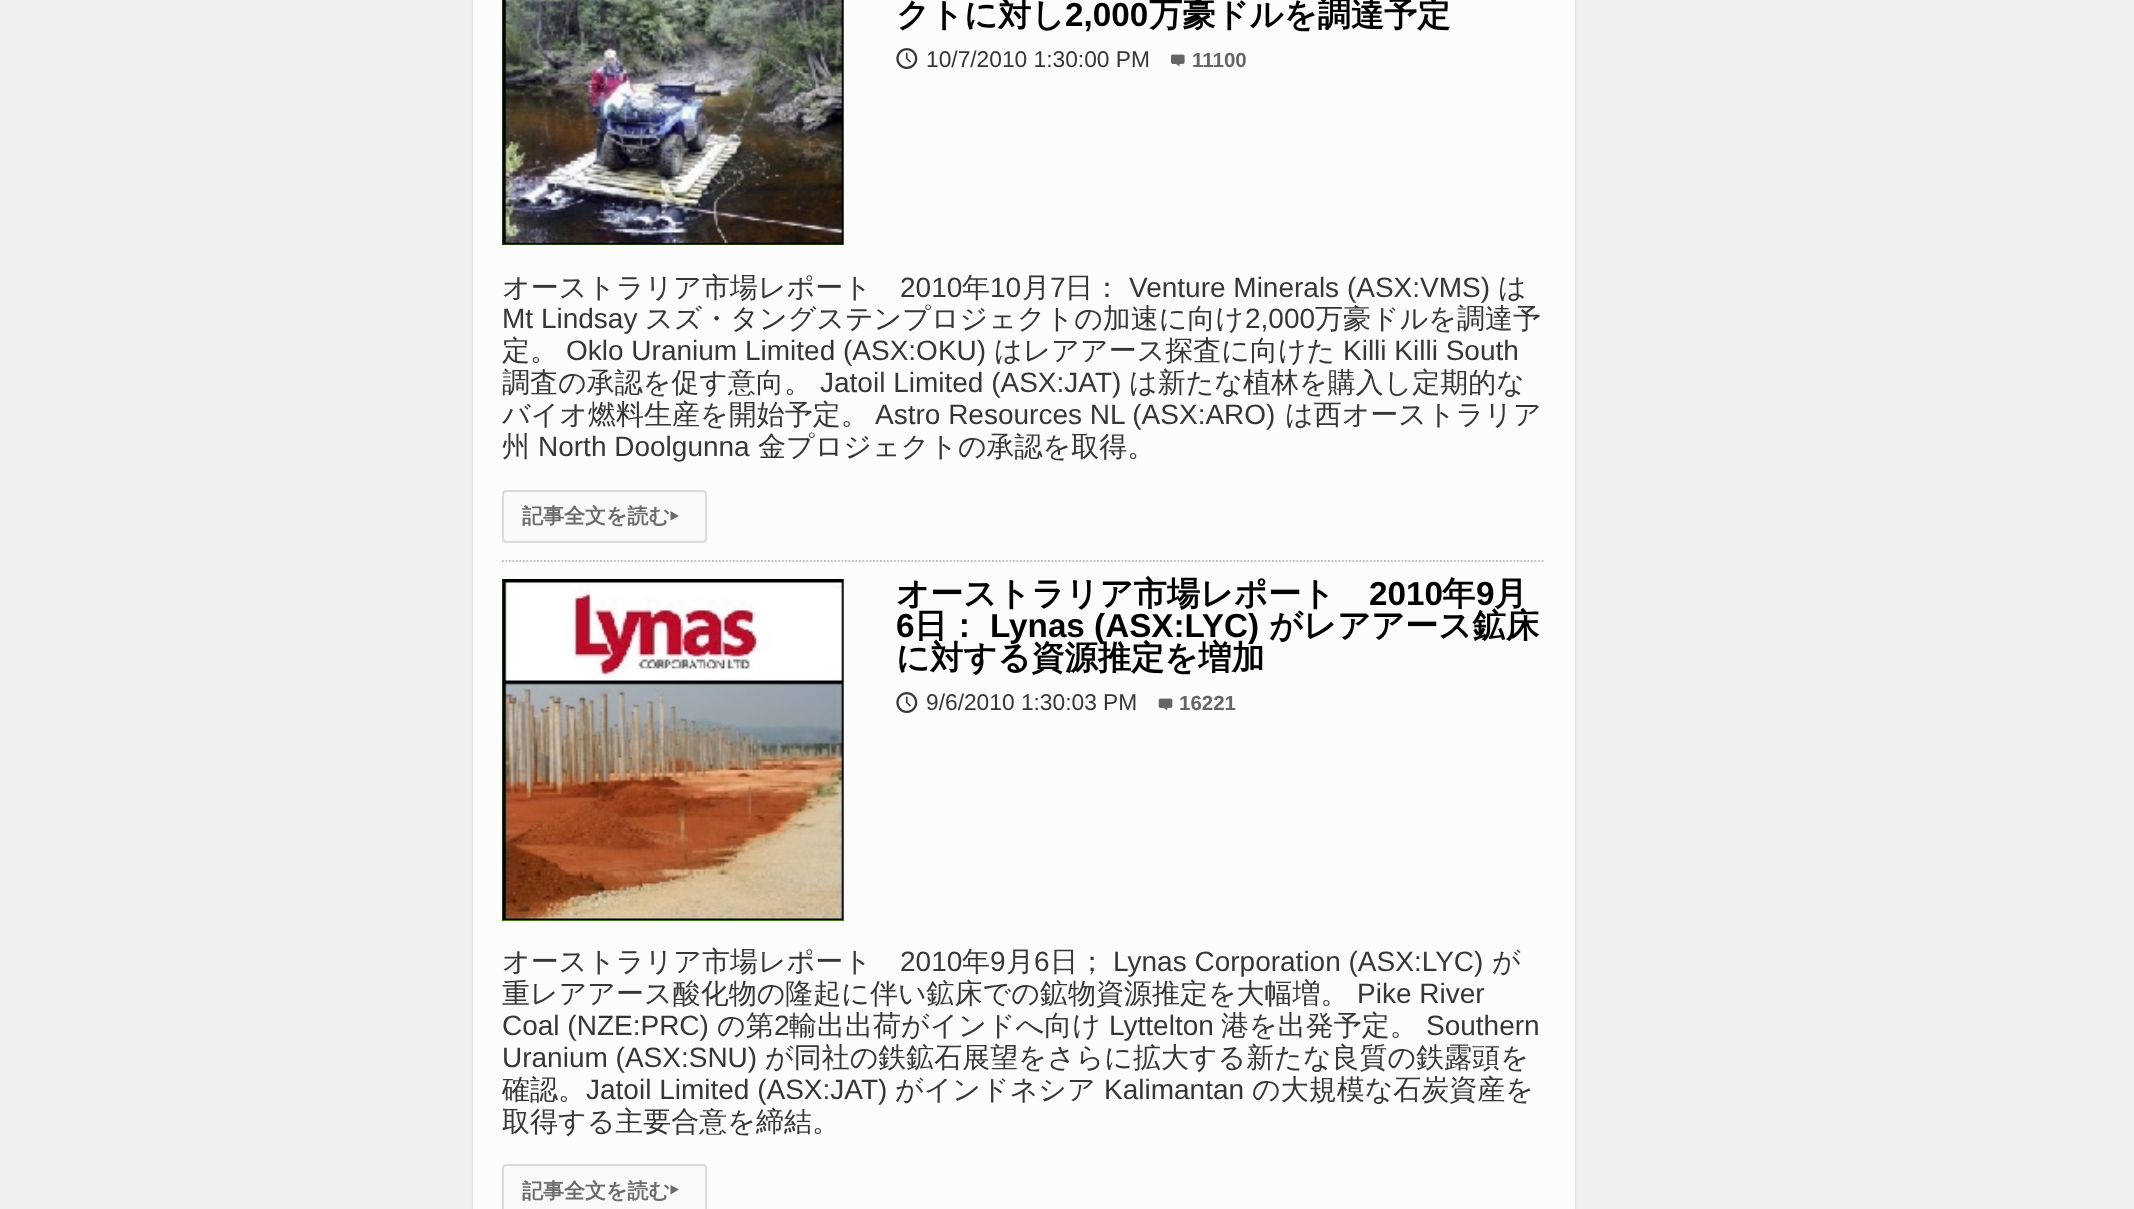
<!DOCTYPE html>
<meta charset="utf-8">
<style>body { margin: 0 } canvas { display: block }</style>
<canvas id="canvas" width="2134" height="1209"></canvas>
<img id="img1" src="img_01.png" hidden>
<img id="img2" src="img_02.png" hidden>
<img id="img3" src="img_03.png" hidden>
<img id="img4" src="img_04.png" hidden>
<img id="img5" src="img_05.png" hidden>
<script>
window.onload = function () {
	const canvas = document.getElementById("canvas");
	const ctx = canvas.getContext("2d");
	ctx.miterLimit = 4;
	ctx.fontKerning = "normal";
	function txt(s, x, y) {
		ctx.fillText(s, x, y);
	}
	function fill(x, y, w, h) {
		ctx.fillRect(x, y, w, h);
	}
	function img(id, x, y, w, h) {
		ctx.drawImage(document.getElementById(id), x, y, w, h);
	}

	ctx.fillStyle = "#F0EFEF";
	fill(0, 0, 2134, 1209);
	ctx.fillStyle = "rgba(0, 0, 0, 0.08)";
	ctx.filter = "blur(1px)";
	ctx.beginPath();
	ctx.rect(473, -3, 1102, 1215);
	ctx.fill();
	ctx.filter = "none";
	ctx.fillStyle = "#FCFCFC";
	fill(473, 0, 1102, 1209);
	ctx.beginPath();
	ctx.moveTo(502, 561);
	ctx.lineTo(1545, 561);
	ctx.strokeStyle = "#C0BFBF";
	ctx.lineWidth = 1.8;
	ctx.setLineDash([1.75, 1.75]);
	ctx.stroke();
	ctx.fillStyle = "#5A9E25";
	fill(502, 0, 342, 245);
	img("img1", 502, 0, 342, 245);
	ctx.strokeStyle = "rgba(0, 0, 0, 0.2)";
	ctx.lineWidth = 2;
	ctx.setLineDash([]);
	ctx.strokeRect(503, -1, 340, 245);
	img("img2", 896, 48, 22, 21);
	img("img3", 1171, 54, 14, 13);
	ctx.fillStyle = "#F9F9F9";
	ctx.beginPath();
	ctx.roundRect(503, 491, 203, 51, 3);
	ctx.fill();
	ctx.strokeStyle = "#DBDBDB";
	ctx.stroke();
	ctx.fillStyle = "#6B6B6B";
	ctx.beginPath();
	ctx.moveTo(670.5, 511);
	ctx.lineTo(679, 516);
	ctx.lineTo(670.5, 520.5);
	ctx.closePath();
	ctx.fill();
	ctx.fillStyle = "#5A9E25";
	fill(502, 579, 342, 342);
	img("img4", 502, 579, 342, 342);
	ctx.strokeStyle = "rgba(0, 0, 0, 0.2)";
	ctx.strokeRect(503, 580, 340, 340);
	img("img2", 896, 692, 22, 21);
	img("img5", 1158, 698, 15, 13);
	ctx.fillStyle = "#F9F9F9";
	ctx.beginPath();
	ctx.roundRect(503, 1165, 203, 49, 3);
	ctx.fill();
	ctx.strokeStyle = "#DBDBDB";
	ctx.stroke();
	ctx.fillStyle = "#6B6B6B";
	ctx.beginPath();
	ctx.moveTo(670.5, 1185);
	ctx.lineTo(679, 1189.5);
	ctx.lineTo(670.5, 1194.5);
	ctx.closePath();
	ctx.fill();
	ctx.font = "bold 33.25px WenQuanYi Zen Hei";
	ctx.fillStyle = "#000000";
	txt("クトに対し", 896, 26);
	ctx.font = "bold 33.25px Liberation Sans";
	txt("2,000", 1065, 26);
	ctx.font = "bold 33.25px WenQuanYi Zen Hei";
	txt("万豪ドルを調達予定", 1149, 26);
	ctx.font = "22.75px Liberation Sans";
	ctx.fillStyle = "#363635";
	txt("10/7/2010 1:30:00 PM", 926, 67);
	ctx.font = "bold 20.5px Liberation Sans";
	ctx.fillStyle = "#656565";
	txt("11100", 1192, 67);
	ctx.font = "500 28px WenQuanYi Zen Hei";
	ctx.fillStyle = "#363635";
	txt("オーストラリア市場レポート", 502, 297);
	ctx.font = "28px Liberation Sans";
	txt("2010", 900, 297);
	ctx.font = "500 28px WenQuanYi Zen Hei";
	txt("年", 962, 297);
	ctx.font = "28px Liberation Sans";
	txt("10", 990, 297);
	ctx.font = "500 28px WenQuanYi Zen Hei";
	txt("月", 1022, 297);
	ctx.font = "28px Liberation Sans";
	txt("7", 1050, 297);
	ctx.font = "500 28px WenQuanYi Zen Hei";
	txt("日：", 1065, 297);
	ctx.font = "28px Liberation Sans";
	txt("Venture Minerals (ASX:VMS)", 1129, 297);
	ctx.font = "500 28px WenQuanYi Zen Hei";
	txt("は", 1498, 297);
	ctx.font = "28px Liberation Sans";
	txt("Mt Lindsay", 502, 328);
	ctx.font = "500 28px WenQuanYi Zen Hei";
	txt("スズ・タングステンプロジェクトの加速に向け", 645, 328);
	ctx.font = "28px Liberation Sans";
	txt("2,000", 1245, 328);
	ctx.font = "500 28px WenQuanYi Zen Hei";
	txt("万豪ドルを調達予", 1315, 328);
	txt("定。", 502, 360);
	ctx.font = "28px Liberation Sans";
	txt("Oklo Uranium Limited (ASX:OKU)", 566, 360);
	ctx.font = "500 28px WenQuanYi Zen Hei";
	txt("はレアアース探査に向けた", 994, 360);
	ctx.font = "28px Liberation Sans";
	txt("Killi Killi South", 1343, 360);
	ctx.font = "500 28px WenQuanYi Zen Hei";
	txt("調査の承認を促す意向。", 502, 392);
	ctx.font = "28px Liberation Sans";
	txt("Jatoil Limited (ASX:JAT)", 820, 392);
	ctx.font = "500 28px WenQuanYi Zen Hei";
	txt("は新たな植林を購入し定期的な", 1129, 392);
	txt("バイオ燃料生産を開始予定。", 502, 424);
	ctx.font = "28px Liberation Sans";
	txt("Astro Resources NL (ASX:ARO)", 875, 424);
	ctx.font = "500 28px WenQuanYi Zen Hei";
	txt("は西オーストラリア", 1285, 424);
	txt("州", 502, 456);
	ctx.font = "28px Liberation Sans";
	txt("North Doolgunna", 538, 456);
	ctx.font = "500 28px WenQuanYi Zen Hei";
	txt("金プロジェクトの承認を取得。", 758, 456);
	ctx.font = "bold 21px WenQuanYi Zen Hei";
	ctx.fillStyle = "#6B6B6B";
	txt("記事全文を読む", 522, 523);
	ctx.font = "bold 33.25px WenQuanYi Zen Hei";
	ctx.fillStyle = "#000000";
	txt("オーストラリア市場レポート", 896, 605);
	ctx.font = "bold 33.25px Liberation Sans";
	txt("2010", 1369, 605);
	ctx.font = "bold 33.25px WenQuanYi Zen Hei";
	txt("年", 1442, 605);
	ctx.font = "bold 33.25px Liberation Sans";
	txt("9", 1476, 605);
	ctx.font = "bold 33.25px WenQuanYi Zen Hei";
	txt("月", 1494, 605);
	ctx.font = "bold 33.25px Liberation Sans";
	txt("6", 896, 637);
	ctx.font = "bold 33.25px WenQuanYi Zen Hei";
	txt("日：", 914, 637);
	ctx.font = "bold 33.25px Liberation Sans";
	txt("Lynas (ASX:LYC)", 990, 637);
	ctx.font = "bold 33.25px WenQuanYi Zen Hei";
	txt("がレアアース鉱床", 1269, 637);
	txt("に対する資源推定を増加", 896, 669);
	ctx.font = "22.75px Liberation Sans";
	ctx.fillStyle = "#363635";
	txt("9/6/2010 1:30:03 PM", 926, 710);
	ctx.font = "bold 20.5px Liberation Sans";
	ctx.fillStyle = "#656565";
	txt("16221", 1179, 710);
	ctx.font = "500 28px WenQuanYi Zen Hei";
	ctx.fillStyle = "#363635";
	txt("オーストラリア市場レポート", 502, 971);
	ctx.font = "28px Liberation Sans";
	txt("2010", 900, 971);
	ctx.font = "500 28px WenQuanYi Zen Hei";
	txt("年", 962, 971);
	ctx.font = "28px Liberation Sans";
	txt("9", 990, 971);
	ctx.font = "500 28px WenQuanYi Zen Hei";
	txt("月", 1006, 971);
	ctx.font = "28px Liberation Sans";
	txt("6", 1034, 971);
	ctx.font = "500 28px WenQuanYi Zen Hei";
	txt("日；", 1050, 971);
	ctx.font = "28px Liberation Sans";
	txt("Lynas Corporation (ASX:LYC)", 1113, 971);
	ctx.font = "500 28px WenQuanYi Zen Hei";
	txt("が", 1492, 971);
	txt("重レアアース酸化物の隆起に伴い鉱床での鉱物資源推定を大幅増。", 502, 1003);
	ctx.font = "28px Liberation Sans";
	txt("Pike River", 1357, 1003);
	txt("Coal (NZE:PRC)", 502, 1035);
	ctx.font = "500 28px WenQuanYi Zen Hei";
	txt("の第", 717, 1035);
	ctx.font = "28px Liberation Sans";
	txt("2", 774, 1035);
	ctx.font = "500 28px WenQuanYi Zen Hei";
	txt("輸出出荷がインドへ向け", 789, 1035);
	ctx.font = "28px Liberation Sans";
	txt("Lyttelton", 1109, 1035);
	ctx.font = "500 28px WenQuanYi Zen Hei";
	txt("港を出発予定。", 1221, 1035);
	ctx.font = "28px Liberation Sans";
	txt("Southern", 1426, 1035);
	txt("Uranium (ASX:SNU)", 502, 1067);
	ctx.font = "500 28px WenQuanYi Zen Hei";
	txt("が同社の鉄鉱石展望をさらに拡大する新たな良質の鉄露頭を", 765, 1067);
	txt("確認。", 502, 1099);
	ctx.font = "28px Liberation Sans";
	txt("Jatoil Limited (ASX:JAT)", 586, 1099);
	ctx.font = "500 28px WenQuanYi Zen Hei";
	txt("がインドネシア", 895, 1099);
	ctx.font = "28px Liberation Sans";
	txt("Kalimantan", 1104, 1099);
	ctx.font = "500 28px WenQuanYi Zen Hei";
	txt("の大規模な石炭資産を", 1252, 1099);
	txt("取得する主要合意を締結。", 502, 1131);
	ctx.font = "bold 21px WenQuanYi Zen Hei";
	ctx.fillStyle = "#6B6B6B";
	txt("記事全文を読む", 522, 1198);
};
</script>
